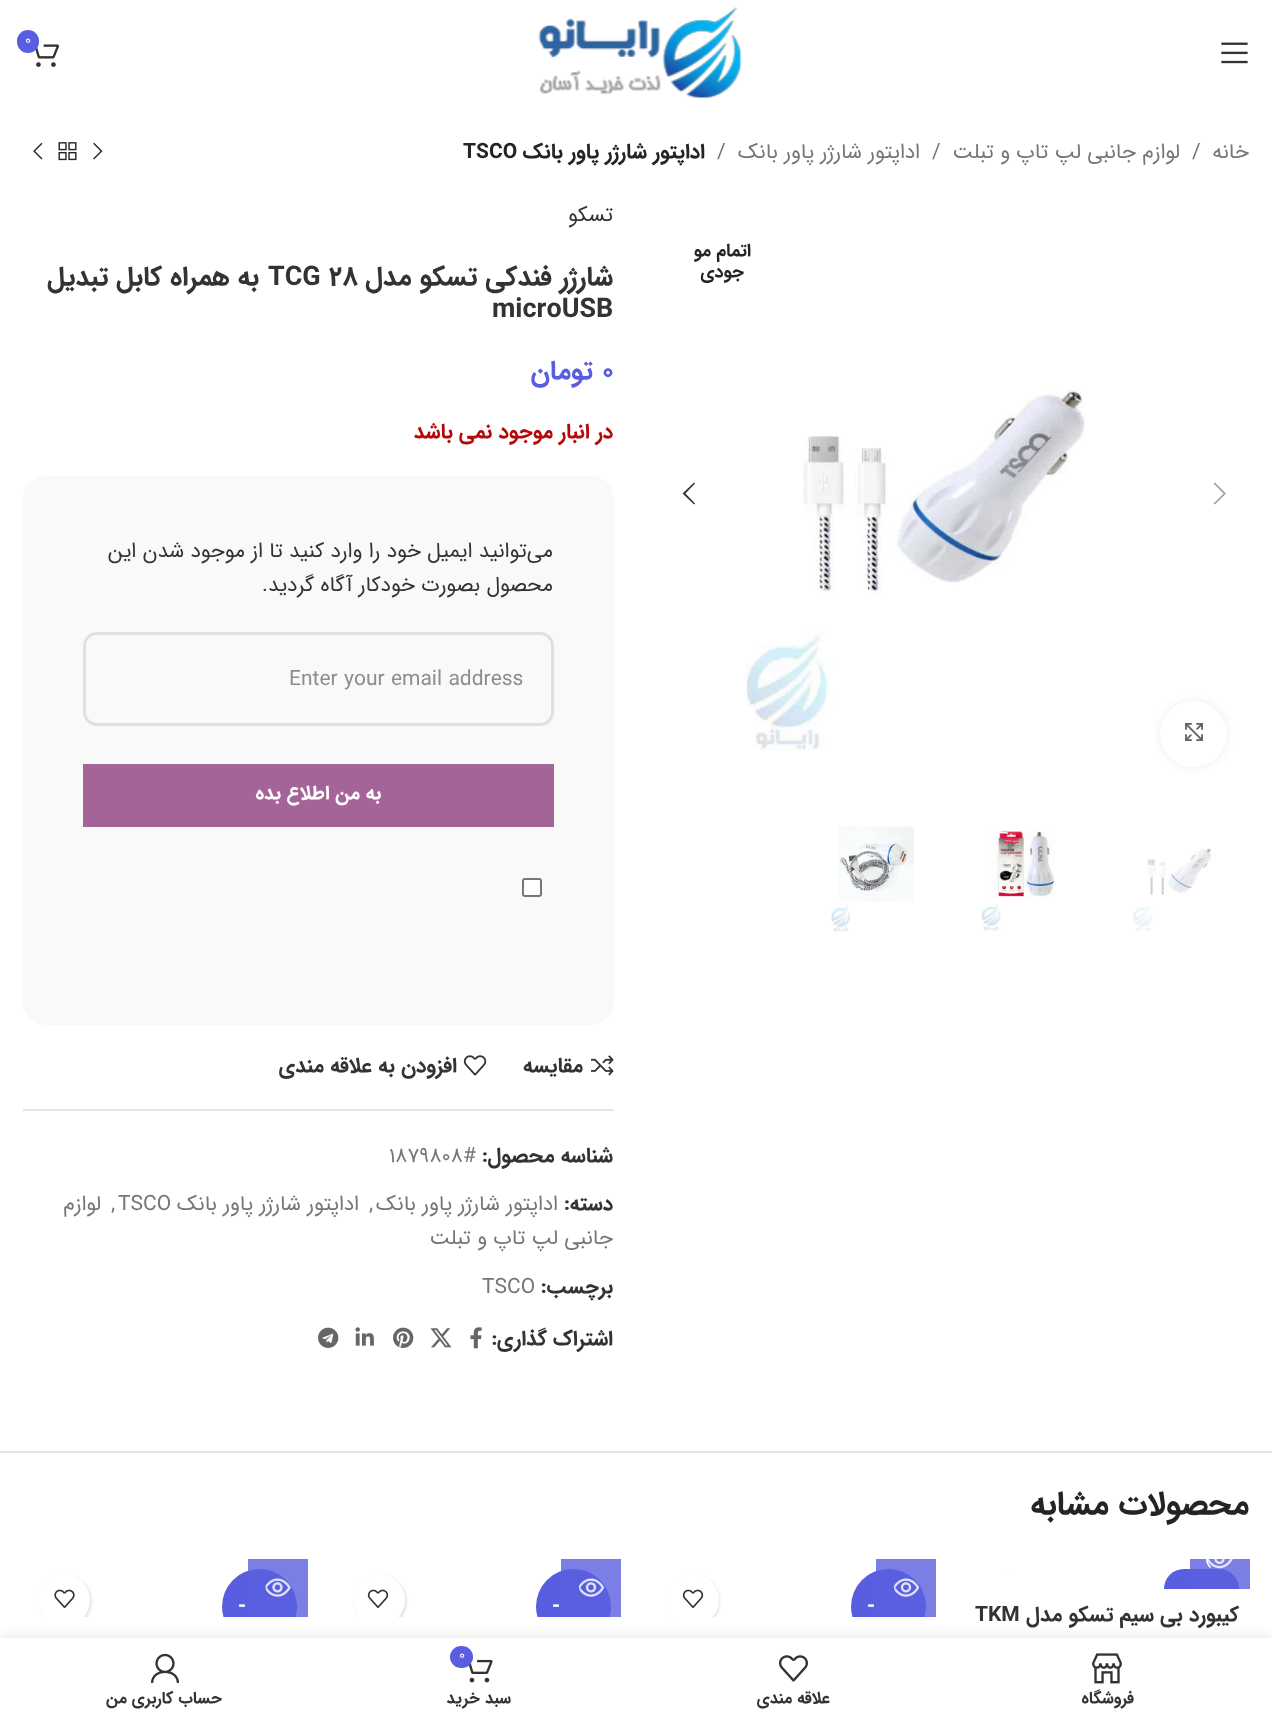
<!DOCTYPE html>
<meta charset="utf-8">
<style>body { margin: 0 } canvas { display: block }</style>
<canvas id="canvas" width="1272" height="1720"></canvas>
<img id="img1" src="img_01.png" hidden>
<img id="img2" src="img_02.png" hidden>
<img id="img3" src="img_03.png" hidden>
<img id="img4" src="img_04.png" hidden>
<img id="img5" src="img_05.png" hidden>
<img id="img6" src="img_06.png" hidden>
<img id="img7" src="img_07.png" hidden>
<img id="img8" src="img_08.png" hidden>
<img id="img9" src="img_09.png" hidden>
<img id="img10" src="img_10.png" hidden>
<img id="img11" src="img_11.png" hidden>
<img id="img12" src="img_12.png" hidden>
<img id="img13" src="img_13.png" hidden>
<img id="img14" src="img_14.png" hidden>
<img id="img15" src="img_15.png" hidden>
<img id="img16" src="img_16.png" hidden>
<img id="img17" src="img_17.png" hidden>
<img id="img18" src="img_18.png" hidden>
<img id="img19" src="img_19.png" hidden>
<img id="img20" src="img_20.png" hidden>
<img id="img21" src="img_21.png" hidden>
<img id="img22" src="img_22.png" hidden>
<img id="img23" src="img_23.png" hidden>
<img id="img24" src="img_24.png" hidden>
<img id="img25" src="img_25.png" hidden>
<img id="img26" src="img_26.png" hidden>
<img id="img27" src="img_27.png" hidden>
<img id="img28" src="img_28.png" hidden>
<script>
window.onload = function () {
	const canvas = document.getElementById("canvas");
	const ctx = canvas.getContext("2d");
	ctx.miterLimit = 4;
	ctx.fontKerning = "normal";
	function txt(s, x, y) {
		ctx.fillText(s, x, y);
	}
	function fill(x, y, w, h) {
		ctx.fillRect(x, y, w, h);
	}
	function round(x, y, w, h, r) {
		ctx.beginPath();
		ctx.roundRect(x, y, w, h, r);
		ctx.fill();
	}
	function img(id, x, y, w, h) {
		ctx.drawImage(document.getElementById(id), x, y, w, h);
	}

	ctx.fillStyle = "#FFFFFF";
	fill(0, 0, 1272, 1720);
	img("img1", 538, 7, 205, 91);
	img("img2", 35, 44, 25, 23);
	ctx.fillStyle = "#595EE0";
	round(17, 30, 22, 23, 11);
	img("img3", 1221, 42, 27, 22);
	img("img4", 93, 142, 10, 18);
	img("img5", 58, 142, 19, 19);
	img("img6", 33, 142, 10, 18);
	img("img7", 744, 387, 341, 364);
	ctx.fillStyle = "#A5A5A5";
	ctx.beginPath();
	ctx.moveTo(1213.5, 483.5);
	ctx.lineTo(1223.5, 493.5);
	ctx.lineTo(1213.5, 503.5);
	ctx.lineTo(1215, 504.5);
	ctx.lineTo(1226, 493.5);
	ctx.lineTo(1215, 482.5);
	ctx.closePath();
	ctx.fill();
	ctx.fillStyle = "#333333";
	ctx.beginPath();
	ctx.moveTo(695, 483.5);
	ctx.lineTo(694, 482.5);
	ctx.lineTo(682.5, 493.5);
	ctx.lineTo(694, 504.5);
	ctx.lineTo(695, 503.5);
	ctx.lineTo(685.5, 493.5);
	ctx.closePath();
	ctx.fill();
	ctx.fillStyle = "rgba(0, 0, 0, 0.08)";
	ctx.filter = "blur(4px)";
	ctx.beginPath();
	ctx.roundRect(1160, 701, 67, 66, 33);
	ctx.fill();
	ctx.filter = "none";
	ctx.fillStyle = "#FFFFFF";
	round(1160, 701, 67, 66, 33);
	img("img8", 1185, 723, 18, 18);
	img("img9", 1133, 848, 79, 83);
	img("img10", 981, 830, 74, 101);
	img("img11", 831, 826, 83, 106);
	ctx.fillStyle = "#F9F9F9";
	round(23, 476, 591, 549, 23);
	ctx.beginPath();
	ctx.roundRect(84.5, 633.5, 468, 91, 12.5);
	ctx.strokeStyle = "#E0E0E0";
	ctx.lineWidth = 3;
	ctx.stroke();
	ctx.fillStyle = "#A46497";
	fill(83, 764, 471, 63);
	ctx.fillStyle = "#FFFFFF";
	ctx.beginPath();
	ctx.roundRect(523, 879, 18, 17, 2);
	ctx.fill();
	ctx.strokeStyle = "#767676";
	ctx.lineWidth = 2;
	ctx.stroke();
	img("img12", 591, 1055, 23, 21);
	img("img13", 463, 1055, 24, 21);
	ctx.fillStyle = "#E4E4E4";
	fill(23, 1109, 591, 2);
	img("img14", 470, 1327, 12, 22);
	img("img15", 430, 1328, 22, 20);
	img("img16", 393, 1327, 21, 21);
	img("img17", 355, 1327, 19, 19);
	img("img18", 318, 1327, 21, 21);
	fill(0, 1451, 1272, 2);
	ctx.fillStyle = "#595EE0";
	ctx.beginPath();
	ctx.roundRect(1164, 1569, 75, 20, [37.5, 37.5, 0, 0]);
	ctx.fill();
	ctx.fillStyle = "rgba(90, 95, 222, 0.8)";
	fill(1190, 1559, 60, 30);
	img("img19", 1206, 1559, 27, 10);
	ctx.save();
	ctx.beginPath();
	ctx.rect(1190, 1559, 60, 30);
	ctx.clip();
	ctx.beginPath();
	ctx.moveTo(1210.5, 1567.5);
	ctx.bezierCurveTo(1205.5, 1562.5, 1205.5, 1554.5, 1210.5, 1549.5);
	ctx.strokeStyle = "#FFFFFF";
	ctx.lineWidth = 1.5;
	ctx.stroke();
	ctx.restore();
	ctx.save();
	ctx.beginPath();
	ctx.rect(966, 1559, 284, 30);
	ctx.clip();
	ctx.fillStyle = "rgba(0, 0, 0, 0.1)";
	ctx.filter = "blur(1px)";
	ctx.beginPath();
	ctx.roundRect(983, 1575, 52, 53, 26);
	ctx.fill();
	ctx.filter = "none";
	ctx.restore();
	ctx.fillStyle = "#FFFFFF";
	ctx.beginPath();
	ctx.roundRect(981, 1574, 53, 15, [26, 26, 0, 0]);
	ctx.fill();
	ctx.save();
	ctx.beginPath();
	ctx.rect(651, 1559, 285, 58);
	ctx.clip();
	ctx.fillStyle = "#595EE0";
	ctx.beginPath();
	ctx.arc(888.5, 1606.5, 37.5, 0, Math.PI * 2);
	ctx.fill();
	ctx.restore();
	ctx.fillStyle = "rgba(90, 95, 222, 0.8)";
	fill(876, 1559, 60, 58);
	img("img20", 892, 1578, 28, 19);
	ctx.beginPath();
	ctx.moveTo(897, 1596);
	ctx.bezierCurveTo(892, 1591, 892, 1583, 897, 1578);
	ctx.strokeStyle = "#595EE0";
	ctx.lineWidth = 1.5;
	ctx.stroke();
	ctx.save();
	ctx.beginPath();
	ctx.rect(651, 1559, 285, 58);
	ctx.clip();
	ctx.fillStyle = "rgba(0, 0, 0, 0.1)";
	ctx.filter = "blur(1px)";
	ctx.beginPath();
	ctx.roundRect(668, 1575, 52, 53, 26);
	ctx.fill();
	ctx.filter = "none";
	ctx.restore();
	ctx.save();
	ctx.beginPath();
	ctx.rect(651, 1559, 285, 58);
	ctx.clip();
	ctx.fillStyle = "#FFFFFF";
	round(666, 1574, 53, 52, 26);
	ctx.restore();
	img("img21", 682, 1589, 22, 19);
	ctx.save();
	ctx.beginPath();
	ctx.rect(338, 1559, 283, 58);
	ctx.clip();
	ctx.fillStyle = "#595EE0";
	ctx.beginPath();
	ctx.arc(573.5, 1606.5, 37.5, 0, Math.PI * 2);
	ctx.fill();
	ctx.restore();
	fill(561, 1559, 60, 58);
	img("img22", 577, 1578, 28, 19);
	ctx.beginPath();
	ctx.moveTo(582, 1596);
	ctx.bezierCurveTo(577, 1591, 577, 1583, 582, 1578);
	ctx.stroke();
	ctx.save();
	ctx.beginPath();
	ctx.rect(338, 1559, 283, 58);
	ctx.clip();
	ctx.fillStyle = "rgba(0, 0, 0, 0.1)";
	ctx.filter = "blur(1px)";
	ctx.beginPath();
	ctx.roundRect(354, 1575, 53, 53, 26.5);
	ctx.fill();
	ctx.filter = "none";
	ctx.restore();
	ctx.save();
	ctx.beginPath();
	ctx.rect(338, 1559, 283, 58);
	ctx.clip();
	ctx.fillStyle = "#FFFFFF";
	ctx.beginPath();
	ctx.arc(379, 1600, 26, 0, Math.PI * 2);
	ctx.fill();
	ctx.restore();
	img("img21", 367, 1589, 22, 19);
	ctx.save();
	ctx.beginPath();
	ctx.rect(23, 1559, 285, 58);
	ctx.clip();
	ctx.fillStyle = "#595EE0";
	ctx.beginPath();
	ctx.arc(259.5, 1606.5, 37.5, 0, Math.PI * 2);
	ctx.fill();
	ctx.restore();
	fill(248, 1559, 60, 58);
	img("img23", 264, 1578, 27, 19);
	ctx.beginPath();
	ctx.moveTo(268.5, 1596);
	ctx.bezierCurveTo(263.5, 1591, 263.5, 1583, 268.5, 1578);
	ctx.stroke();
	ctx.save();
	ctx.beginPath();
	ctx.rect(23, 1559, 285, 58);
	ctx.clip();
	ctx.fillStyle = "rgba(0, 0, 0, 0.1)";
	ctx.filter = "blur(1px)";
	ctx.beginPath();
	ctx.roundRect(39, 1575, 53, 53, 26.5);
	ctx.fill();
	ctx.filter = "none";
	ctx.restore();
	ctx.save();
	ctx.beginPath();
	ctx.rect(23, 1559, 285, 58);
	ctx.clip();
	ctx.fillStyle = "#FFFFFF";
	ctx.beginPath();
	ctx.arc(64, 1600, 26, 0, Math.PI * 2);
	ctx.fill();
	ctx.restore();
	img("img24", 54, 1589, 21, 19);
	ctx.fillStyle = "rgba(0, 0, 0, 0.12)";
	ctx.filter = "blur(7px)";
	ctx.beginPath();
	ctx.rect(0, 1638, 1272, 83);
	ctx.fill();
	ctx.filter = "none";
	ctx.fillStyle = "#FFFFFF";
	fill(0, 1638, 1272, 82);
	img("img25", 1092, 1653, 30, 31);
	img("img26", 779, 1655, 29, 27);
	img("img27", 468, 1659, 25, 24);
	ctx.fillStyle = "#595EE0";
	round(450, 1646, 23, 22, 11);
	img("img28", 151, 1653, 28, 30);
	ctx.font = "14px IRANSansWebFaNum";
	ctx.fillStyle = "#FFFFFF";
	txt("0", 25, 44);
	ctx.direction = "rtl";
	ctx.font = "21px IRANSansWebFaNum";
	ctx.fillStyle = "#767676";
	txt("خانه", 1249, 158);
	ctx.direction = "ltr";
	txt("/", 1192, 158);
	ctx.direction = "rtl";
	txt("لوازم جانبی لپ تاپ و تبلت", 1180, 158);
	ctx.direction = "ltr";
	txt("/", 932, 158);
	ctx.direction = "rtl";
	txt("اداپتور شارژر پاور بانک", 920, 158);
	ctx.direction = "ltr";
	txt("/", 717, 158);
	ctx.direction = "rtl";
	ctx.font = "bold 21px IRANSansWebFaNum";
	ctx.fillStyle = "#242424";
	txt("اداپتور شارژر پاور بانک", 705, 158);
	ctx.direction = "ltr";
	txt("TSCO", 463, 158);
	ctx.direction = "rtl";
	ctx.font = "bold 18px IRANSansWebFaNum";
	txt("اتمام مو", 751, 256);
	txt("جودی", 744, 277);
	ctx.font = "21px IRANSansWebFaNum";
	ctx.fillStyle = "#333333";
	txt("تسکو", 613, 221);
	ctx.font = "bold 27px IRANSansWebFaNum";
	txt("شارژر فندکی تسکو مدل", 613, 285);
	ctx.direction = "ltr";
	txt("TCG 28", 268, 285);
	ctx.direction = "rtl";
	txt("به همراه کابل تبدیل", 259, 285);
	ctx.direction = "ltr";
	txt("microUSB", 492, 317);
	ctx.fillStyle = "#595EE0";
	txt("0", 602, 379);
	ctx.direction = "rtl";
	txt("تومان", 593, 379);
	ctx.font = "bold 21px IRANSansWebFaNum";
	ctx.fillStyle = "#B50808";
	txt("در انبار موجود نمی باشد", 613, 438);
	ctx.font = "21px IRANSansWebFaNum";
	ctx.fillStyle = "#333333";
	txt("می‌توانید ایمیل خود را وارد کنید تا از موجود شدن این", 553, 557);
	txt("محصول بصورت خودکار آگاه گردید.", 553, 591);
	ctx.direction = "ltr";
	ctx.fillStyle = "#8D8D8D";
	txt("Enter your email address", 289, 685);
	ctx.direction = "rtl";
	ctx.font = "bold 19.5px IRANSansWebFaNum";
	ctx.fillStyle = "#FFFFFF";
	txt("به من اطلاع بده", 381, 799);
	ctx.font = "bold 21px IRANSansWebFaNum";
	ctx.fillStyle = "#333333";
	txt("مقایسه", 583, 1072);
	txt("افزودن به علاقه مندی", 457, 1072);
	txt("شناسه محصول:", 613, 1162);
	ctx.direction = "ltr";
	ctx.font = "21px IRANSansWebFaNum";
	ctx.fillStyle = "#767676";
	txt("1879808#", 389, 1162);
	ctx.direction = "rtl";
	ctx.font = "bold 21px IRANSansWebFaNum";
	ctx.fillStyle = "#333333";
	txt("دسته:", 613, 1210);
	ctx.font = "21px IRANSansWebFaNum";
	ctx.fillStyle = "#767676";
	txt("اداپتور شارژر پاور بانک", 558, 1210);
	ctx.direction = "ltr";
	txt(",", 369, 1210);
	ctx.direction = "rtl";
	txt("اداپتور شارژر پاور بانک", 359, 1210);
	ctx.direction = "ltr";
	txt("TSCO", 118, 1210);
	txt(",", 111, 1210);
	ctx.direction = "rtl";
	txt("لوازم", 101, 1210);
	txt("جانبی لپ تاپ و تبلت", 613, 1244);
	ctx.font = "bold 21px IRANSansWebFaNum";
	ctx.fillStyle = "#333333";
	txt("برچسب:", 613, 1293);
	ctx.direction = "ltr";
	ctx.font = "21px IRANSansWebFaNum";
	ctx.fillStyle = "#767676";
	txt("TSCO", 482, 1293);
	ctx.direction = "rtl";
	ctx.font = "bold 21px IRANSansWebFaNum";
	ctx.fillStyle = "#333333";
	txt("اشتراک گذاری:", 613, 1345);
	ctx.font = "bold 33px IRANSansWebFaNum";
	ctx.fillStyle = "#242424";
	txt("محصولات مشابه", 1249, 1514);
	ctx.font = "bold 21px IRANSansWebFaNum";
	ctx.fillStyle = "#333333";
	txt("کیبورد بی سیم تسکو مدل", 1239, 1621);
	ctx.direction = "ltr";
	txt("TKM", 975, 1621);
	ctx.fillStyle = "#FFFFFF";
	txt("-", 867, 1612);
	txt("-", 552, 1612);
	txt("-", 238, 1612);
	ctx.direction = "rtl";
	ctx.font = "bold 16.5px IRANSansWebFaNum";
	ctx.fillStyle = "#333333";
	txt("فروشگاه", 1134, 1703);
	txt("علاقه مندی", 830, 1703);
	ctx.direction = "ltr";
	ctx.font = "14px IRANSansWebFaNum";
	ctx.fillStyle = "#FFFFFF";
	txt("0", 459, 1659);
	ctx.direction = "rtl";
	ctx.font = "bold 16.5px IRANSansWebFaNum";
	ctx.fillStyle = "#333333";
	txt("سبد خرید", 511, 1703);
	txt("حساب کاربری من", 222, 1703);
};
</script>
